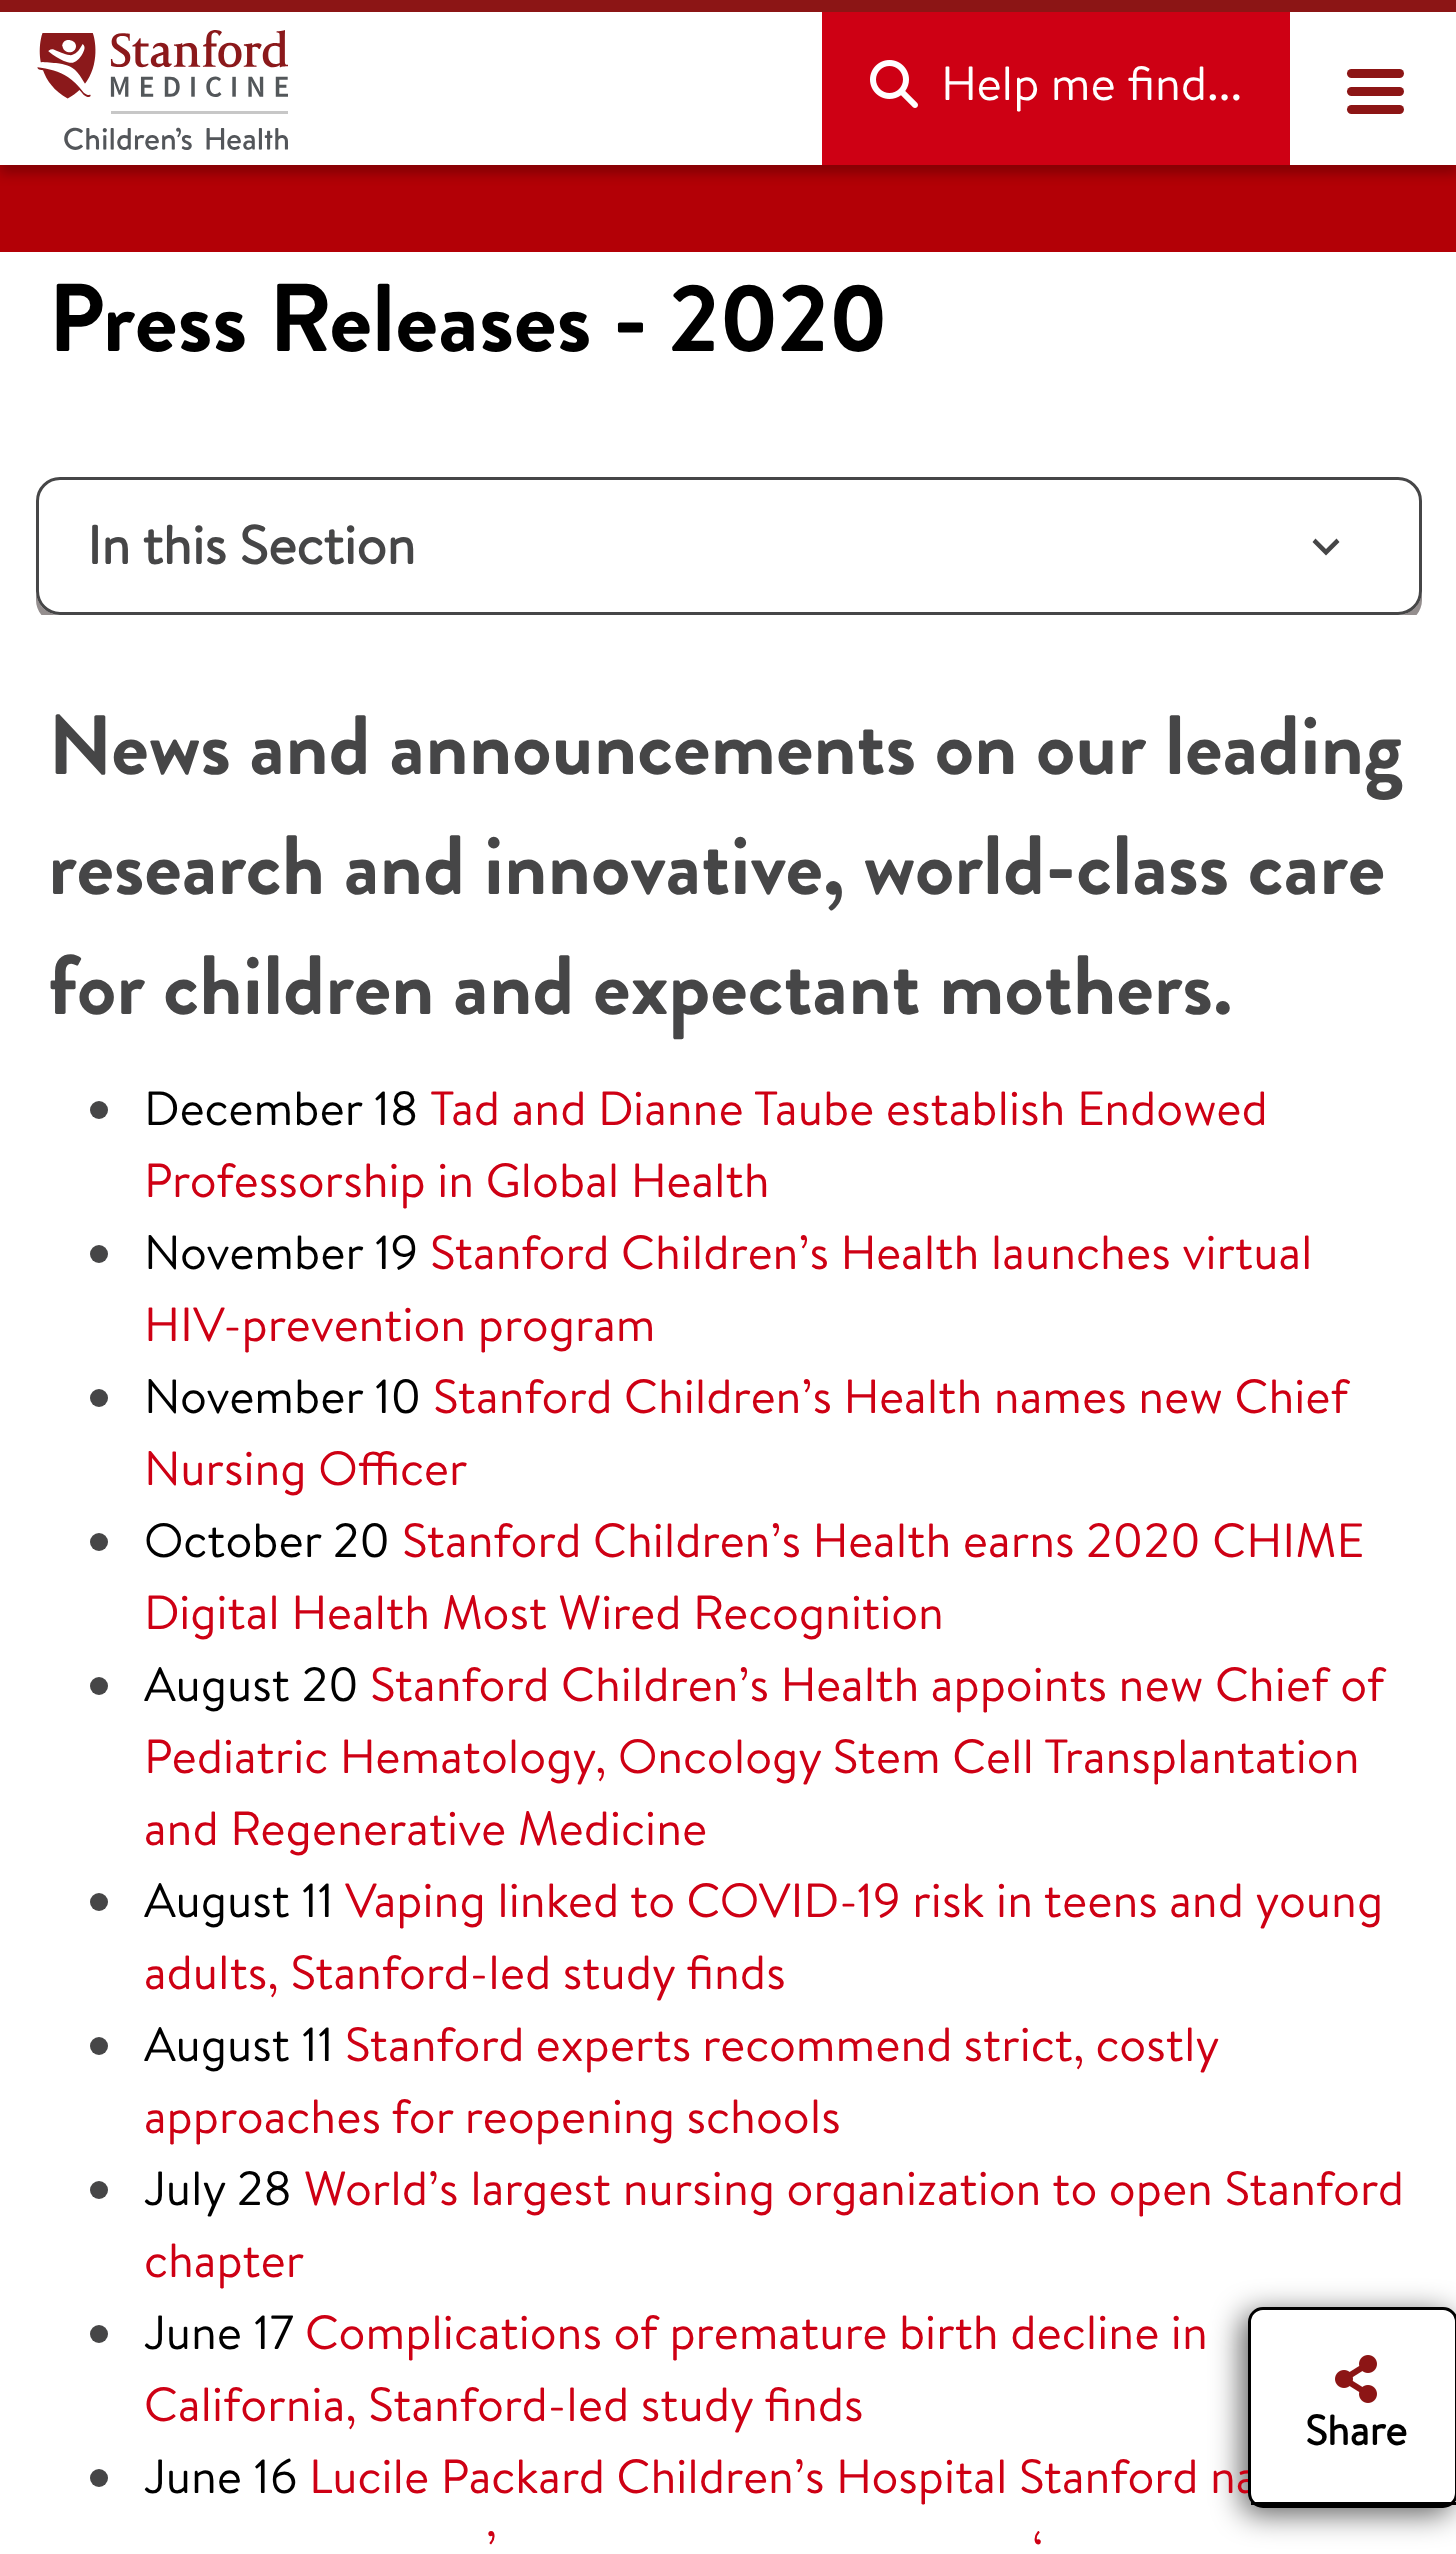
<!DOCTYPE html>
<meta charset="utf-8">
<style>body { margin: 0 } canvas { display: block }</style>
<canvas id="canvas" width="1456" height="2554"></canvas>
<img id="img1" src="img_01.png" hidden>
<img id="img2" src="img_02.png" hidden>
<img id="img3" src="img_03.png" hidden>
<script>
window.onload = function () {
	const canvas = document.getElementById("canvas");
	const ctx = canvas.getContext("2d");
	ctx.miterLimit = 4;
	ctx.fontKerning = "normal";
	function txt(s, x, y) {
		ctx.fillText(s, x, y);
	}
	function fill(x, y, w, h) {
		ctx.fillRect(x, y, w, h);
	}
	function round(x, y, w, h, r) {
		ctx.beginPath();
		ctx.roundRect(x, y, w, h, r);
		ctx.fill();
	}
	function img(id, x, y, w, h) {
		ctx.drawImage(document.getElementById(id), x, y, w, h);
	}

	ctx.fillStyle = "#FFFFFF";
	fill(0, 0, 1456, 2554);
	ctx.fillStyle = "#B30006";
	fill(0, 165, 1456, 87);
	ctx.fillStyle = "rgba(0, 0, 0, 0.25)";
	ctx.filter = "blur(6px)";
	ctx.beginPath();
	ctx.rect(0, 9, 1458, 165);
	ctx.fill();
	ctx.filter = "none";
	ctx.fillStyle = "#FFFFFF";
	fill(0, 12, 1456, 153);
	ctx.fillStyle = "#8C1515";
	fill(0, 0, 1456, 12);
	img("img1", 37, 30, 251, 120);
	ctx.fillStyle = "#CE0014";
	fill(822, 12, 468, 153);
	img("img2", 870, 60, 48, 48);
	ctx.fillStyle = "#8C1515";
	round(1347, 69, 57, 9, 4.5);
	round(1347, 87, 57, 9, 4.5);
	round(1347, 105, 57, 9, 4.5);
	ctx.save();
	ctx.beginPath();
	ctx.rect(0, 477, 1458, 138);
	ctx.clip();
	ctx.fillStyle = "#948E8E";
	ctx.beginPath();
	ctx.moveTo(36, 591);
	ctx.lineTo(36, 600);
	ctx.bezierCurveTo(36, 613, 47, 624, 60, 624);
	ctx.lineTo(1398, 624);
	ctx.bezierCurveTo(1411, 624, 1422, 613, 1422, 600);
	ctx.lineTo(1422, 591);
	ctx.bezierCurveTo(1422, 604, 1411, 615, 1398, 615);
	ctx.lineTo(60, 615);
	ctx.bezierCurveTo(47, 615, 36, 604, 36, 591);
	ctx.closePath();
	ctx.fill();
	ctx.restore();
	ctx.fillStyle = "#FFFFFF";
	ctx.beginPath();
	ctx.roundRect(37.5, 478.5, 1383, 135, 22.5);
	ctx.fill();
	ctx.strokeStyle = "#464647";
	ctx.lineWidth = 3;
	ctx.stroke();
	ctx.fillStyle = "#464647";
	ctx.beginPath();
	ctx.moveTo(1315.5, 538.5);
	ctx.lineTo(1326, 549);
	ctx.lineTo(1336.5, 538.5);
	ctx.lineTo(1339.5, 542);
	ctx.lineTo(1326, 555.5);
	ctx.lineTo(1312.5, 542);
	ctx.closePath();
	ctx.fill();
	ctx.beginPath();
	ctx.arc(99, 1110, 9, 0, Math.PI * 2);
	ctx.fill();
	ctx.beginPath();
	ctx.arc(99, 1254, 9, 0, Math.PI * 2);
	ctx.fill();
	ctx.beginPath();
	ctx.arc(99, 1398, 9, 0, Math.PI * 2);
	ctx.fill();
	ctx.beginPath();
	ctx.arc(99, 1542, 9, 0, Math.PI * 2);
	ctx.fill();
	ctx.beginPath();
	ctx.arc(99, 1686, 9, 0, Math.PI * 2);
	ctx.fill();
	ctx.beginPath();
	ctx.arc(99, 1902, 9, 0, Math.PI * 2);
	ctx.fill();
	ctx.beginPath();
	ctx.arc(99, 2046, 9, 0, Math.PI * 2);
	ctx.fill();
	ctx.beginPath();
	ctx.arc(99, 2190, 9, 0, Math.PI * 2);
	ctx.fill();
	ctx.beginPath();
	ctx.arc(99, 2334, 9, 0, Math.PI * 2);
	ctx.fill();
	ctx.beginPath();
	ctx.arc(99, 2478, 9, 0, Math.PI * 2);
	ctx.fill();
	ctx.fillStyle = "rgba(0, 0, 0, 0.63)";
	ctx.filter = "blur(15px)";
	ctx.beginPath();
	ctx.roundRect(1242, 2313, 210, 201, 15);
	ctx.fill();
	ctx.filter = "none";
	ctx.font = "48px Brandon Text";
	ctx.fillStyle = "#FFFFFF";
	txt("Help me find...", 941, 100);
	ctx.font = "96px Brandon Grotesque";
	ctx.fillStyle = "#000000";
	txt("Press Releases - 2020", 48, 351);
	ctx.font = "bold 54px Brandon Text";
	ctx.fillStyle = "#464647";
	txt("In this Section", 87, 564);
	ctx.font = "84px Brandon Grotesque";
	txt("News and announcements on our leading", 48, 774);
	txt("research and innovative, world-class care", 48, 894);
	txt("for children and expectant mothers.", 48, 1014);
	ctx.font = "48px Brandon Text";
	ctx.fillStyle = "#000000";
	txt("December 18", 144, 1125);
	ctx.fillStyle = "#CE0014";
	txt("Tad and Dianne Taube establish Endowed", 430, 1125);
	txt("Professorship in Global Health", 144, 1197);
	ctx.fillStyle = "#000000";
	txt("November 19", 144, 1269);
	ctx.fillStyle = "#CE0014";
	txt("Stanford Children’s Health launches virtual", 430, 1269);
	txt("HIV-prevention program", 144, 1341);
	ctx.fillStyle = "#000000";
	txt("November 10", 144, 1413);
	ctx.fillStyle = "#CE0014";
	txt("Stanford Children’s Health names new Chief", 433, 1413);
	txt("Nursing Officer", 144, 1485);
	ctx.fillStyle = "#000000";
	txt("October 20", 144, 1557);
	ctx.fillStyle = "#CE0014";
	txt("Stanford Children’s Health earns 2020 CHIME", 402, 1557);
	txt("Digital Health Most Wired Recognition", 144, 1629);
	ctx.fillStyle = "#000000";
	txt("August 20", 144, 1701);
	ctx.fillStyle = "#CE0014";
	txt("Stanford Children’s Health appoints new Chief of", 370, 1701);
	txt("Pediatric Hematology, Oncology Stem Cell Transplantation", 144, 1773);
	txt("and Regenerative Medicine", 144, 1845);
	ctx.fillStyle = "#000000";
	txt("August 11", 144, 1917);
	ctx.fillStyle = "#CE0014";
	txt("Vaping linked to COVID-19 risk in teens and young", 345, 1917);
	txt("adults, Stanford-led study finds", 144, 1989);
	ctx.fillStyle = "#000000";
	txt("August 11", 144, 2061);
	ctx.wordSpacing = "-0.5px";
	ctx.fillStyle = "#CE0014";
	txt("Stanford experts recommend strict, costly", 345, 2061);
	ctx.wordSpacing = "0px";
	txt("approaches for reopening schools", 144, 2133);
	ctx.fillStyle = "#000000";
	txt("July 28", 144, 2205);
	ctx.fillStyle = "#CE0014";
	txt("World’s largest nursing organization to open Stanford", 304, 2205);
	txt("chapter", 144, 2277);
	ctx.fillStyle = "#000000";
	txt("June 17", 144, 2349);
	ctx.fillStyle = "#CE0014";
	txt("Complications of premature birth decline in", 305, 2349);
	txt("California, Stanford-led study finds", 144, 2421);
	ctx.fillStyle = "#000000";
	txt("June 16", 144, 2493);
	ctx.fillStyle = "#CE0014";
	txt("Lucile Packard Children’s Hospital Stanford na", 309, 2493);
	txt("’", 486, 2565);
	txt("‘", 1032, 2565);
	ctx.fillStyle = "#FFFFFF";
	ctx.beginPath();
	ctx.roundRect(1249.5, 2308.5, 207, 198, 13.5);
	ctx.fill();
	ctx.strokeStyle = "#000000";
	ctx.stroke();
	ctx.fillStyle = "#000000";
	fill(1251, 2502, 205, 3);
	img("img3", 1335, 2355, 42, 48);
	ctx.font = "bold 42px Brandon Text";
	txt("Share", 1305, 2445);
};
</script>
